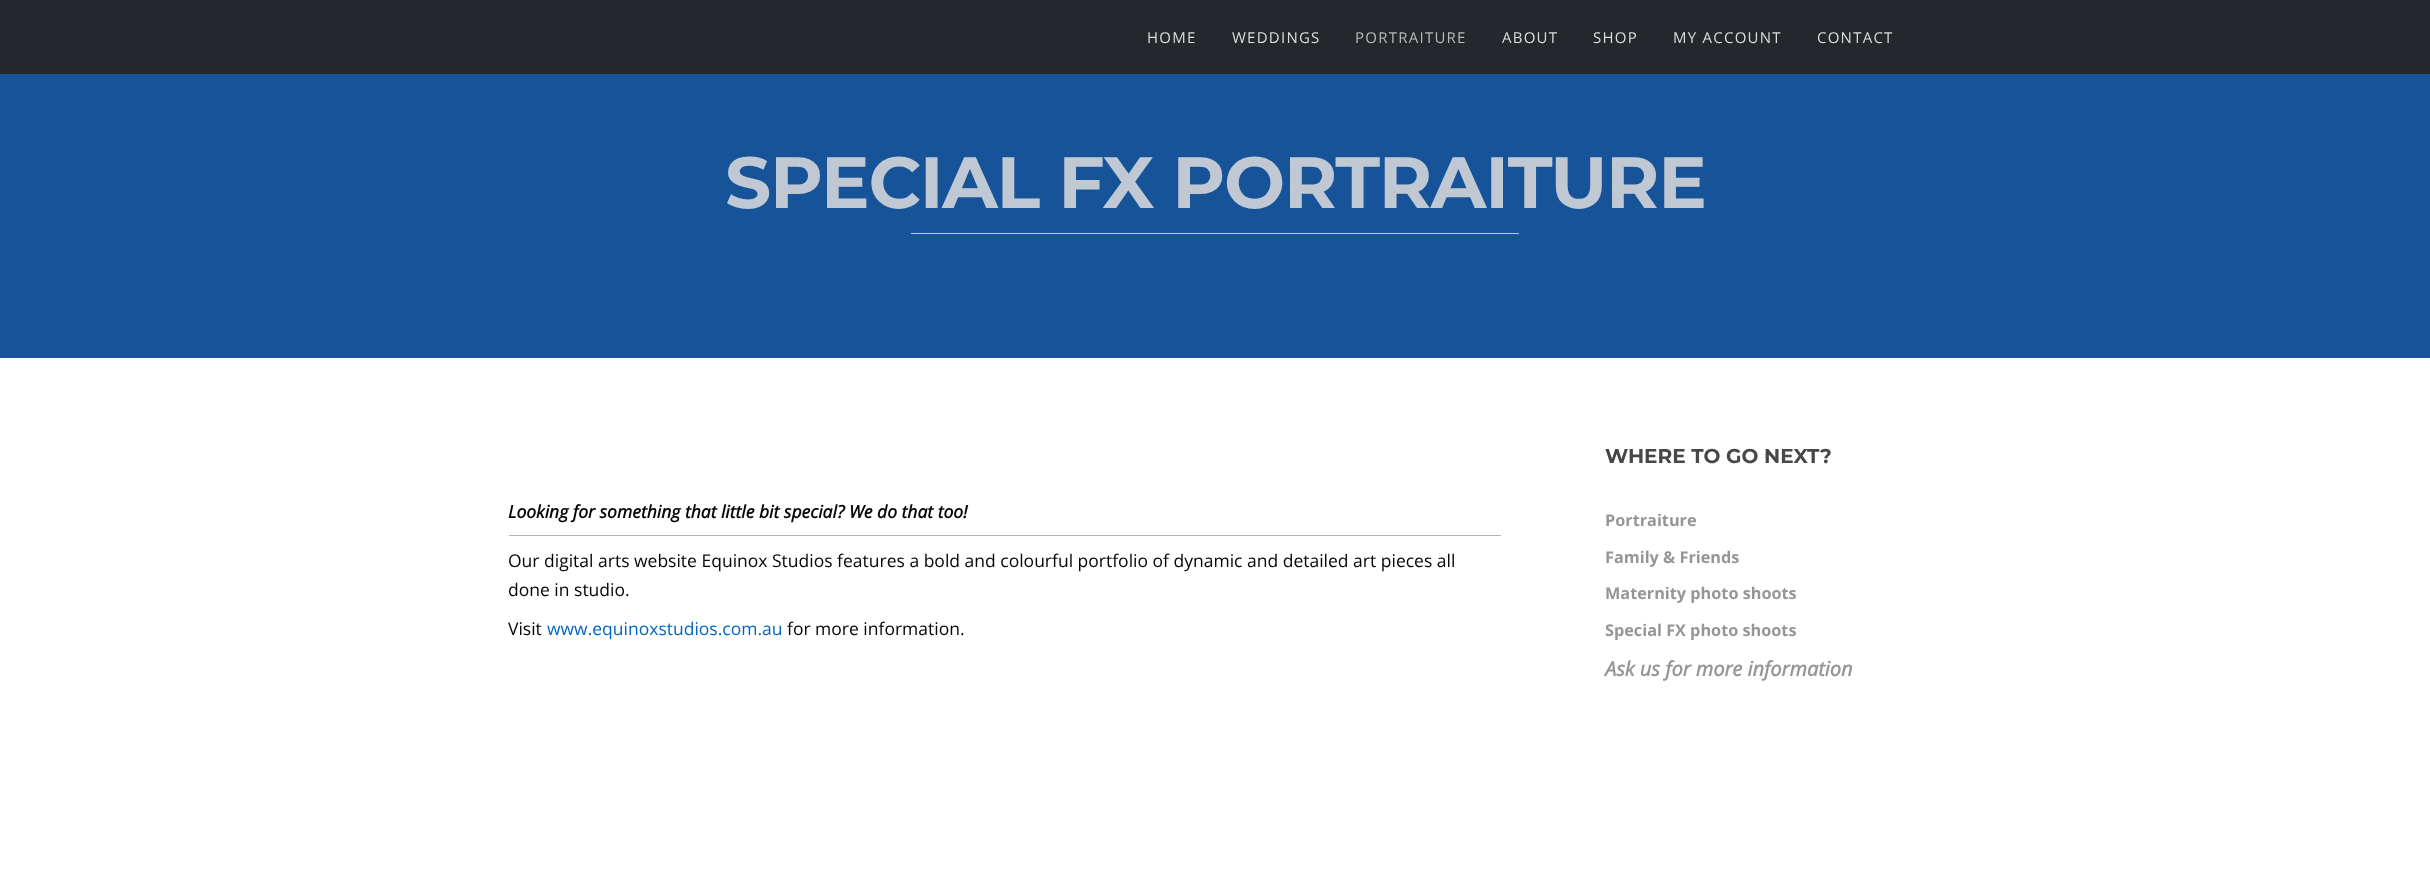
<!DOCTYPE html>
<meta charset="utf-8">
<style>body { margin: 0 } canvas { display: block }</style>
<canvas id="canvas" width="2430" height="874"></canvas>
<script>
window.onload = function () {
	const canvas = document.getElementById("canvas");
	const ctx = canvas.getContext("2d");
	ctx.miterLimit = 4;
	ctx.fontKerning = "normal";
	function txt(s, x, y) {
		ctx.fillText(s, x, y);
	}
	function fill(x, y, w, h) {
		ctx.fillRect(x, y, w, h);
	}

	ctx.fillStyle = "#FFFFFF";
	fill(0, 0, 2430, 874);
	ctx.fillStyle = "#165399";
	fill(0, 74, 2430, 284);
	ctx.fillStyle = "#24272B";
	fill(0, 0, 2430, 74);
	ctx.fillStyle = "#C0C9D3";
	fill(911, 233, 608, 1);
	ctx.fillStyle = "#B3B3B1";
	fill(509, 535, 992, 1);
	ctx.letterSpacing = "1.25px";
	ctx.font = "15px Open Sans";
	ctx.fillStyle = "#DDDDDD";
	txt("HOME", 1147, 43);
	txt("WEDDINGS", 1232, 43);
	ctx.fillStyle = "#B8B9B9";
	txt("PORTRAITURE", 1355, 43);
	ctx.fillStyle = "#DDDDDD";
	txt("ABOUT", 1502, 43);
	txt("SHOP", 1593, 43);
	txt("MY ACCOUNT", 1673, 43);
	txt("CONTACT", 1817, 43);
	ctx.letterSpacing = "-1.25px";
	ctx.font = "bold 72.5px Montserrat";
	ctx.fillStyle = "#C0C9D3";
	txt("SPECIAL FX PORTRAITURE", 725, 208);
	ctx.letterSpacing = "0px";
	ctx.font = "italic bold 17.5px Open Sans";
	ctx.fillStyle = "#050505";
	txt("Looking for something that little bit special? We do that too!", 508, 518);
	ctx.font = "17.5px Open Sans";
	txt("Our digital arts website Equinox Studios features a bold and colourful portfolio of dynamic and detailed art pieces all", 508, 567);
	txt("done in studio.", 508, 596);
	txt("Visit", 508, 635);
	ctx.fillStyle = "#0067C1";
	txt("www.equinoxstudios.com.au", 547, 635);
	ctx.fillStyle = "#050505";
	txt("for more information.", 787, 635);
	ctx.font = "bold 20px Montserrat";
	ctx.fillStyle = "#474747";
	txt("WHERE TO GO NEXT?", 1605, 463);
	ctx.font = "bold 16.25px Open Sans";
	ctx.fillStyle = "#969696";
	txt("Portraiture", 1605, 526);
	txt("Family & Friends", 1605, 563);
	txt("Maternity photo shoots", 1605, 599);
	txt("Special FX photo shoots", 1605, 636);
	ctx.font = "italic bold 20px Open Sans";
	txt("Ask us for more information", 1605, 676);
};
</script>
